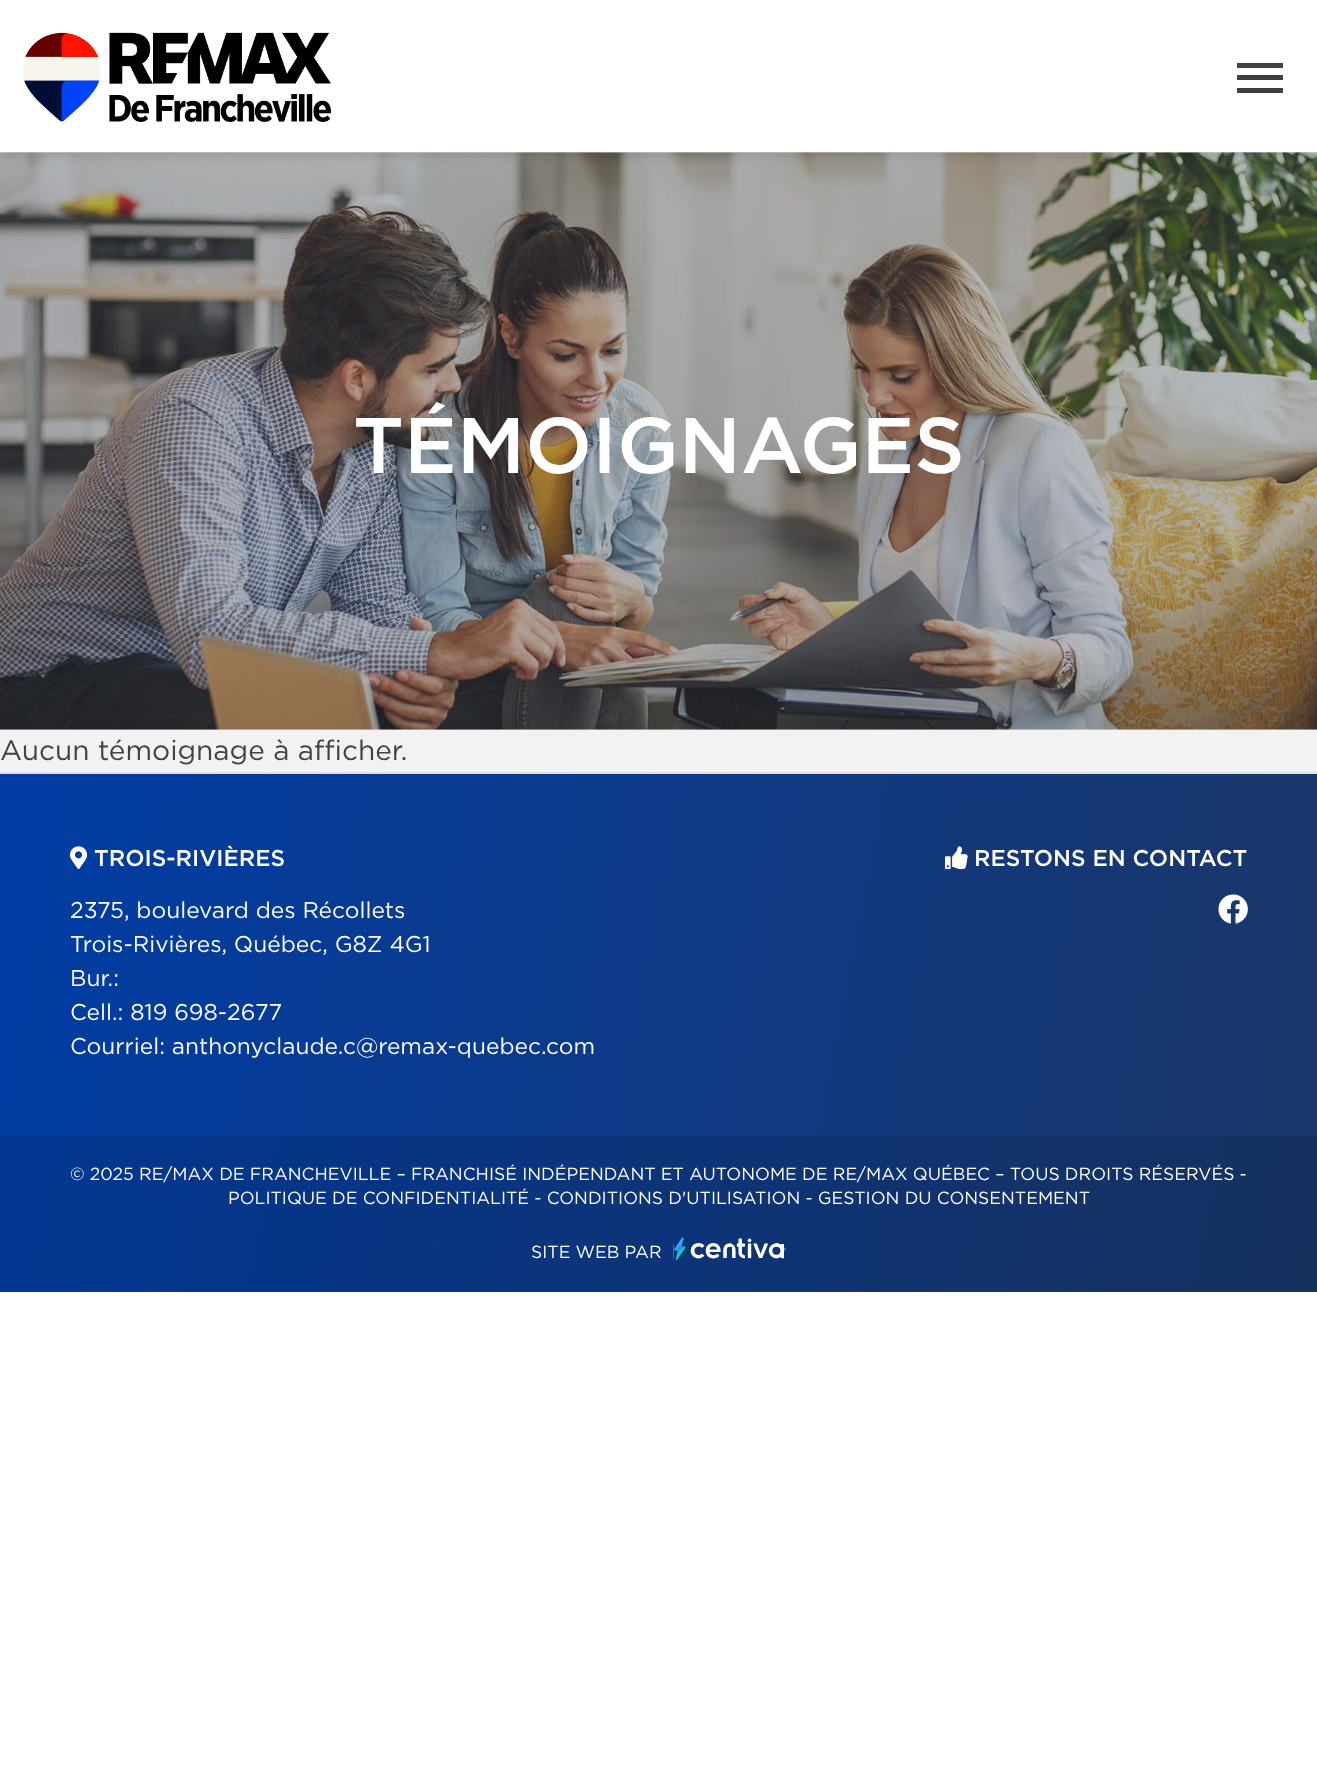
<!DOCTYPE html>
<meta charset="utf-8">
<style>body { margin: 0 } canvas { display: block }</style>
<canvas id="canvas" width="1317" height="1768"></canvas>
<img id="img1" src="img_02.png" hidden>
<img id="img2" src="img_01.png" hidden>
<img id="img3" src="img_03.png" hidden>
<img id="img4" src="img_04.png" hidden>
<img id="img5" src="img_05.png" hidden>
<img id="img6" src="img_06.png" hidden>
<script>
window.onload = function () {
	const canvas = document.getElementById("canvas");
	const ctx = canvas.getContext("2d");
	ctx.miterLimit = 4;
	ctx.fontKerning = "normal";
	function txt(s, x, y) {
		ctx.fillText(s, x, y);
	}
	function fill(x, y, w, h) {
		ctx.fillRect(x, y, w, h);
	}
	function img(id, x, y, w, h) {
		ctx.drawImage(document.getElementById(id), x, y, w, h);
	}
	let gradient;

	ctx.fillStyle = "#FFFFFF";
	fill(0, 0, 1317, 1768);
	ctx.fillStyle = "#F2F2F2";
	fill(0, 152, 1317, 620);
	img("img1", 0, 152, 1317, 578);
	ctx.fillStyle = "rgba(0, 0, 0, 0.1)";
	ctx.filter = "blur(4.5px)";
	ctx.beginPath();
	ctx.rect(2, 4, 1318, 152);
	ctx.fill();
	ctx.filter = "none";
	ctx.fillStyle = "#FFFFFF";
	fill(0, 0, 1317, 152);
	img("img2", 23, 32, 308, 90);
	ctx.fillStyle = "#404041";
	fill(1237, 63, 46, 5);
	fill(1237, 75, 46, 5);
	fill(1237, 88, 46, 5);
	gradient = ctx.createLinearGradient(-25, 900, 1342, 1165);
	gradient.addColorStop(0, "#003DA5");
	gradient.addColorStop(1, "#1A3668");
	ctx.fillStyle = gradient;
	fill(0, 1291, 1317, 1);
	gradient = ctx.createLinearGradient(-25, 900, 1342, 1165);
	gradient.addColorStop(0, "#003795");
	gradient.addColorStop(1, "#17315E");
	ctx.fillStyle = gradient;
	fill(0, 1136, 1317, 155);
	ctx.fillStyle = "#E2E2E2";
	fill(0, 772, 1317, 2);
	gradient = ctx.createLinearGradient(-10, 825, 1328, 1085);
	gradient.addColorStop(0, "#003DA5");
	gradient.addColorStop(1, "#1A3668");
	ctx.fillStyle = gradient;
	fill(0, 774, 1317, 362);
	img("img3", 70, 846, 18, 24);
	img("img4", 945, 846, 23, 24);
	img("img5", 1218, 894, 30, 30);
	img("img6", 673, 1237, 113, 23);
	ctx.font = "500 78.75px Gotham";
	ctx.fillStyle = "#FFFFFF";
	txt("TÉMOIGNAGES", 353, 473);
	ctx.font = "28px Gotham";
	ctx.fillStyle = "#434345";
	txt("Aucun témoignage à afficher.", 0, 760);
	ctx.font = "500 22.75px Gotham";
	ctx.fillStyle = "#FFFFFF";
	txt("TROIS-RIVIÈRES", 94, 866);
	ctx.font = "22.75px Gotham";
	txt("2375, boulevard des Récollets", 70, 918);
	txt("Trois-Rivières, Québec, G8Z 4G1", 70, 952);
	txt("Bur.:", 70, 986);
	txt("Cell.: 819 698-2677", 70, 1020);
	txt("Courriel: anthonyclaude.c@remax-quebec.com", 70, 1054);
	ctx.font = "500 22.75px Gotham";
	txt("RESTONS EN CONTACT", 974, 866);
	ctx.font = "17.5px Gotham";
	txt("© 2025 RE/MAX DE FRANCHEVILLE – FRANCHISÉ INDÉPENDANT ET AUTONOME DE RE/MAX QUÉBEC – TOUS DROITS RÉSERVÉS -", 70, 1180);
	txt("POLITIQUE DE CONFIDENTIALITÉ - CONDITIONS D'UTILISATION - GESTION DU CONSENTEMENT", 228, 1204);
	txt("SITE WEB PAR", 531, 1258);
};
</script>
